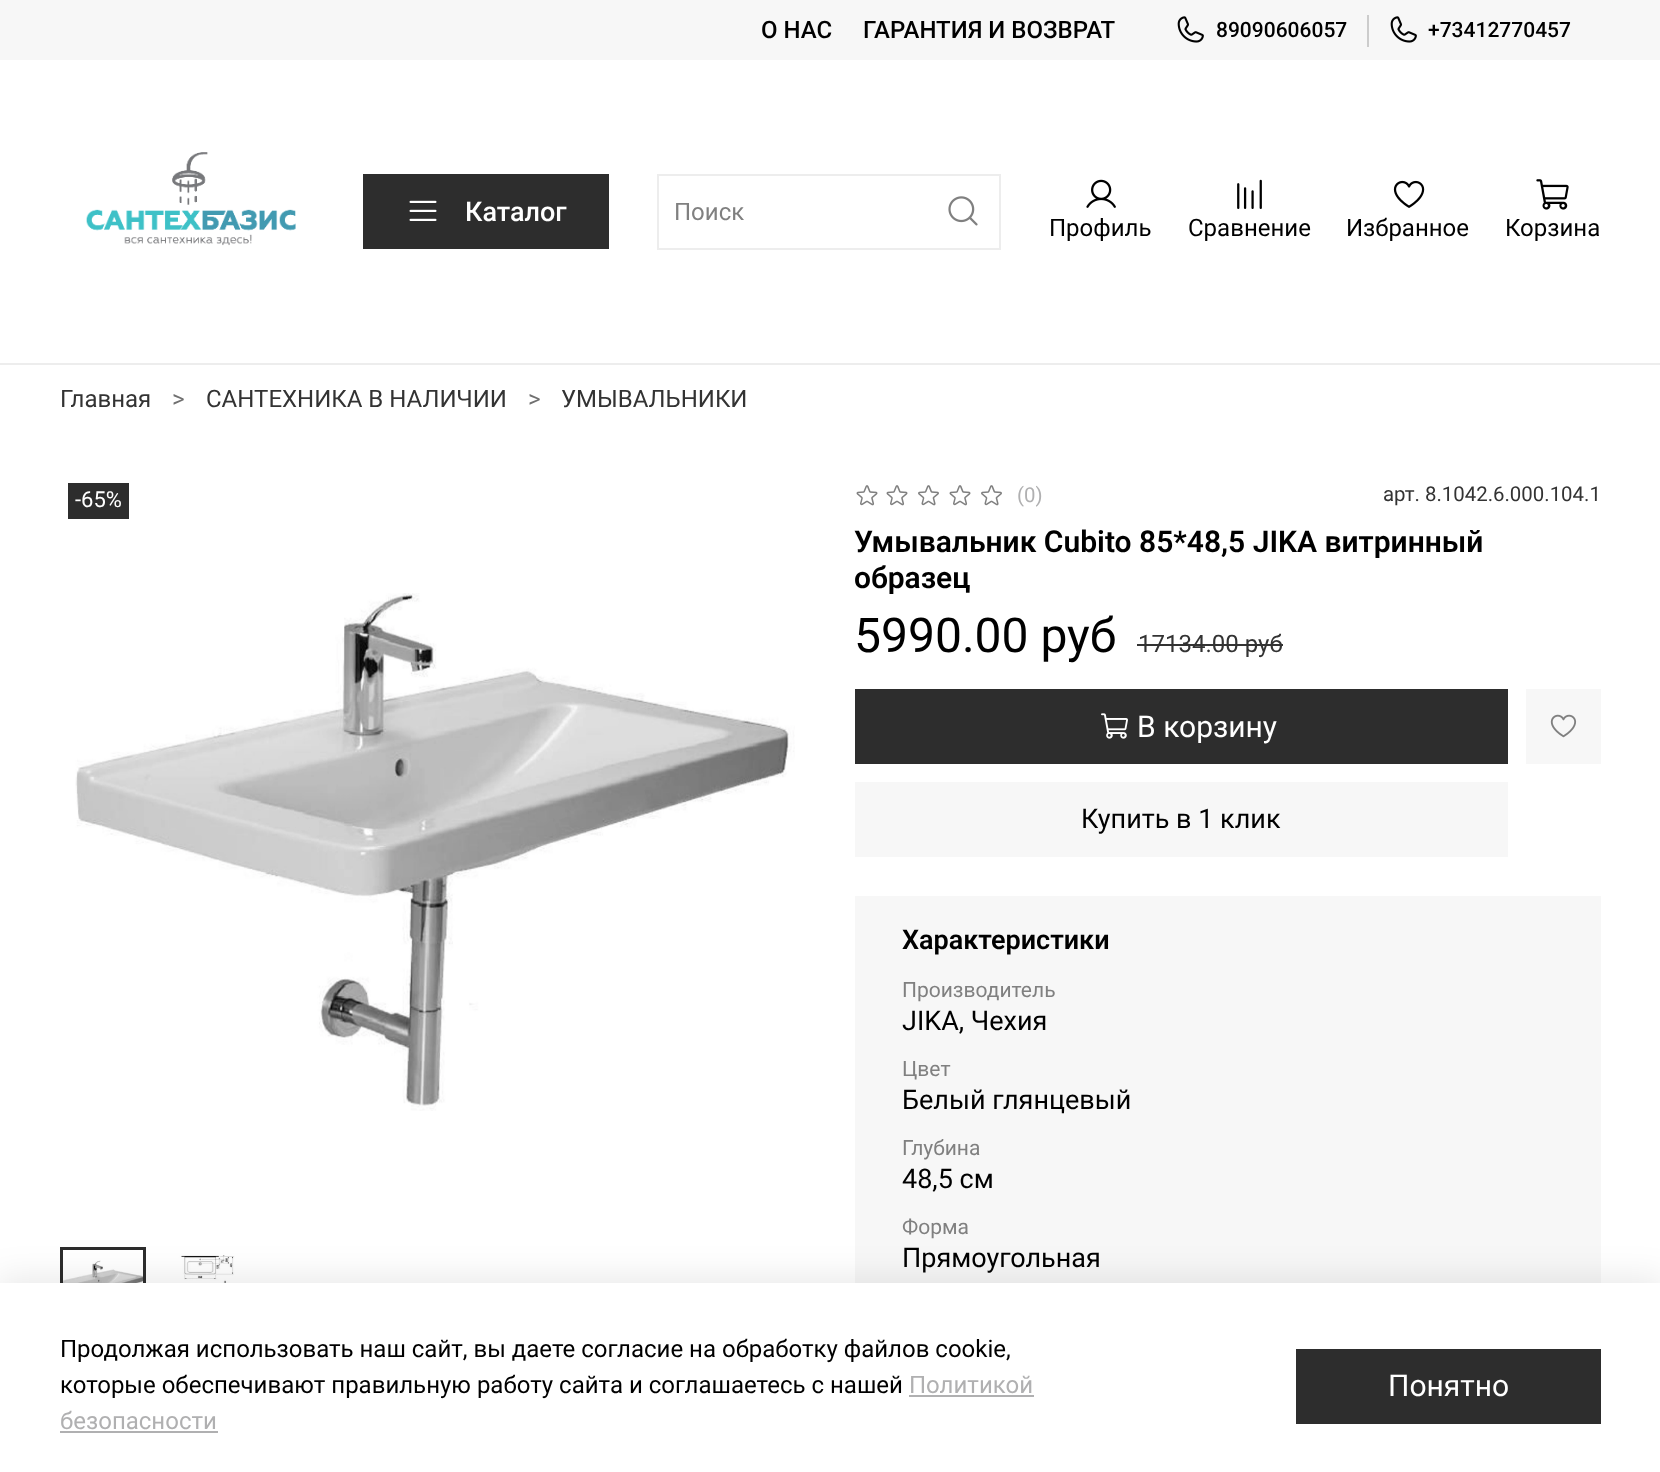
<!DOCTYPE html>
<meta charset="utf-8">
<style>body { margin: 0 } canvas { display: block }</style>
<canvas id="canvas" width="1660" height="1472"></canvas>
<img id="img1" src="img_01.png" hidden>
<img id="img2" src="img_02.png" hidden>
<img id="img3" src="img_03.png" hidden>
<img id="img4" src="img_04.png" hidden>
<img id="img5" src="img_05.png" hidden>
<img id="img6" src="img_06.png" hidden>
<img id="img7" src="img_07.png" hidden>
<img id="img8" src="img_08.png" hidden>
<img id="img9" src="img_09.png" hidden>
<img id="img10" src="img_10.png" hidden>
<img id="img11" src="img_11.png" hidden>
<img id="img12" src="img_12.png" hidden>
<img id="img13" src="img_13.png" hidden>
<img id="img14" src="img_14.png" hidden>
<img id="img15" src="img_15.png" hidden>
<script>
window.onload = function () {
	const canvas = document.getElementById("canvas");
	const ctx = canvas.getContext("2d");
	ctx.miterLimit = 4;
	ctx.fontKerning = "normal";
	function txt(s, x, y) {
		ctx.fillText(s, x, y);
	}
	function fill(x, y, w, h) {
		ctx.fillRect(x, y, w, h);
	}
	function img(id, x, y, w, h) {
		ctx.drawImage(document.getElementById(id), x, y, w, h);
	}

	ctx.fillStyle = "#FFFFFF";
	fill(0, 0, 1660, 1472);
	ctx.fillStyle = "#F7F7F7";
	fill(0, 0, 1660, 60);
	ctx.fillStyle = "#CCCCCC";
	fill(1367, 15, 2, 32);
	img("img1", 1177, 16, 27, 27);
	img("img1", 1390, 16, 27, 27);
	ctx.fillStyle = "#EDEDED";
	fill(0, 363, 1660, 2);
	img("img2", 86, 152, 210, 94);
	ctx.fillStyle = "#2D2D2D";
	fill(363, 174, 246, 75);
	img("img3", 409, 200, 28, 21);
	ctx.fillStyle = "#EDEDED";
	fill(657, 174, 344, 2);
	fill(657, 248, 269, 2);
	fill(657, 174, 2, 75);
	fill(999, 174, 2, 75);
	fill(926, 248, 75, 2);
	img("img4", 948, 196, 30, 30);
	img("img5", 1086, 179, 30, 29);
	img("img6", 1237, 179, 25, 30);
	img("img7", 1393, 180, 32, 28);
	img("img8", 1536, 179, 33, 31);
	ctx.fillStyle = "#2D2D2D";
	fill(68, 483, 61, 36);
	img("img9", 75, 593, 720, 518);
	img("img10", 63, 1260, 80, 23);
	ctx.strokeStyle = "#2D2D2D";
	ctx.lineWidth = 3;
	ctx.strokeRect(61.5, 1248.5, 83, 82);
	img("img11", 169, 1255, 87, 28);
	img("img12", 856, 485, 22, 21);
	img("img12", 886, 485, 22, 21);
	img("img13", 918, 485, 21, 21);
	img("img12", 949, 485, 22, 21);
	img("img13", 981, 485, 21, 21);
	ctx.fillStyle = "#333333";
	fill(1137, 644, 146, 2);
	ctx.fillStyle = "#2D2D2D";
	fill(855, 689, 653, 75);
	img("img14", 1101, 713, 27, 26);
	ctx.fillStyle = "#F7F7F7";
	fill(855, 782, 653, 75);
	fill(1526, 689, 75, 75);
	img("img15", 1550, 714, 27, 24);
	fill(855, 896, 746, 387);
	ctx.fillStyle = "rgba(0, 0, 0, 0.09)";
	ctx.filter = "blur(17px)";
	ctx.beginPath();
	ctx.rect(-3, 1278, 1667, 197);
	ctx.fill();
	ctx.filter = "none";
	ctx.fillStyle = "#FFFFFF";
	fill(0, 1283, 1660, 189);
	ctx.fillStyle = "#B0B0B1";
	fill(909, 1395, 125, 2);
	fill(60, 1431, 158, 2);
	ctx.fillStyle = "#2D2D2D";
	fill(1296, 1349, 305, 75);
	ctx.font = "500 24px Roboto";
	ctx.fillStyle = "#000000";
	txt("О НАС", 761, 38);
	txt("ГАРАНТИЯ И ВОЗВРАТ", 863, 38);
	ctx.font = "500 21px Roboto";
	txt("89090606057", 1216, 37);
	txt("+73412770457", 1428, 37);
	ctx.font = "500 27px Roboto";
	ctx.fillStyle = "#FFFFFF";
	txt("Каталог", 465, 221);
	ctx.font = "24px Roboto";
	ctx.fillStyle = "#808080";
	txt("Поиск", 674, 220);
	ctx.fillStyle = "#000000";
	txt("Профиль", 1049, 236);
	txt("Сравнение", 1188, 236);
	txt("Избранное", 1346, 236);
	txt("Корзина", 1505, 236);
	ctx.fillStyle = "#333333";
	txt("Главная", 60, 407);
	ctx.fillStyle = "#707070";
	txt(">", 172, 407);
	ctx.fillStyle = "#333333";
	txt("САНТЕХНИКА В НАЛИЧИИ", 206, 407);
	ctx.fillStyle = "#707070";
	txt(">", 528, 407);
	ctx.fillStyle = "#333333";
	txt("УМЫВАЛЬНИКИ", 561, 407);
	ctx.font = "22px Roboto";
	ctx.fillStyle = "#FFFFFF";
	txt("-65%", 75, 507);
	ctx.font = "20.4px Roboto";
	ctx.fillStyle = "#B0B0B1";
	txt("(0)", 1017, 502);
	ctx.fillStyle = "#333333";
	txt("арт. 8.1042.6.000.104.1", 1383, 501);
	ctx.font = "600 30px Roboto";
	ctx.fillStyle = "#000000";
	txt("Умывальник Cubito 85*48,5 JIKA витринный", 854, 552);
	txt("образец", 854, 588);
	ctx.font = "48px Roboto";
	txt("5990.00 руб", 854, 652);
	ctx.font = "24px Roboto";
	ctx.fillStyle = "#333333";
	txt("17134.00 руб", 1138, 652);
	ctx.font = "30px Roboto";
	ctx.fillStyle = "#FFFFFF";
	txt("В корзину", 1137, 737);
	ctx.font = "27px Roboto";
	ctx.fillStyle = "#000000";
	txt("Купить в 1 клик", 1081, 828);
	ctx.font = "600 27px Roboto";
	txt("Характеристики", 902, 949);
	ctx.font = "21px Roboto";
	ctx.fillStyle = "#808080";
	txt("Производитель", 902, 997);
	ctx.font = "27px Roboto";
	ctx.fillStyle = "#000000";
	txt("JIKA, Чехия", 902, 1030);
	ctx.font = "21px Roboto";
	ctx.fillStyle = "#808080";
	txt("Цвет", 902, 1076);
	ctx.font = "27px Roboto";
	ctx.fillStyle = "#000000";
	txt("Белый глянцевый", 902, 1109);
	ctx.font = "21px Roboto";
	ctx.fillStyle = "#808080";
	txt("Глубина", 902, 1155);
	ctx.font = "27px Roboto";
	ctx.fillStyle = "#000000";
	txt("48,5 см", 902, 1188);
	ctx.font = "21px Roboto";
	ctx.fillStyle = "#808080";
	txt("Форма", 902, 1234);
	ctx.font = "27px Roboto";
	ctx.fillStyle = "#000000";
	txt("Прямоугольная", 902, 1267);
	ctx.font = "24px Roboto";
	txt("Продолжая использовать наш сайт, вы даете согласие на обработку файлов cookie,", 60, 1357);
	txt("которые обеспечивают правильную работу сайта и соглашаетесь с нашей", 60, 1393);
	ctx.fillStyle = "#B0B0B1";
	txt("Политикой", 909, 1393);
	txt("безопасности", 60, 1429);
	ctx.font = "30px Roboto";
	ctx.fillStyle = "#FFFFFF";
	txt("Понятно", 1388, 1396);
};
</script>
